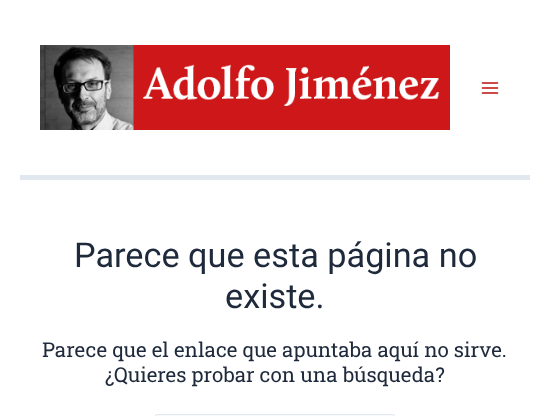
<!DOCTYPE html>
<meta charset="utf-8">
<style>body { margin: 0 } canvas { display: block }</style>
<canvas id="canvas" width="550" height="416"></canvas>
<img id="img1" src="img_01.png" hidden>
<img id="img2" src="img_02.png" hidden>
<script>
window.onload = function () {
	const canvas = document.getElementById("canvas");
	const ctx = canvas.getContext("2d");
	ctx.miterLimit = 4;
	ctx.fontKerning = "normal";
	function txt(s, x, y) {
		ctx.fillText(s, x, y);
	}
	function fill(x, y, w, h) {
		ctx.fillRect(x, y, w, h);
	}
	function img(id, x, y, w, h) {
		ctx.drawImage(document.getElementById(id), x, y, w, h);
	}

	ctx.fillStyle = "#FFFFFF";
	fill(0, 0, 550, 416);
	ctx.fillStyle = "#E2E8F0";
	fill(20, 175, 510, 5);
	img("img1", 40, 45, 410, 85);
	img("img2", 481, 82, 18, 12);
	ctx.fillStyle = "#FAFAFA";
	ctx.beginPath();
	ctx.roundRect(155.5, 414.5, 239, 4, 1.5);
	ctx.fill();
	ctx.strokeStyle = "#E2E8F0";
	ctx.stroke();
	ctx.font = "34.25px Roboto";
	ctx.fillStyle = "#1E293B";
	txt("Parece que esta página no", 74, 267);
	txt("existe.", 225, 308);
	ctx.font = "20.5px Roboto Slab";
	txt("Parece que el enlace que apuntaba aquí no sirve.", 42, 357);
	txt("¿Quieres probar con una búsqueda?", 105, 382);
};
</script>
